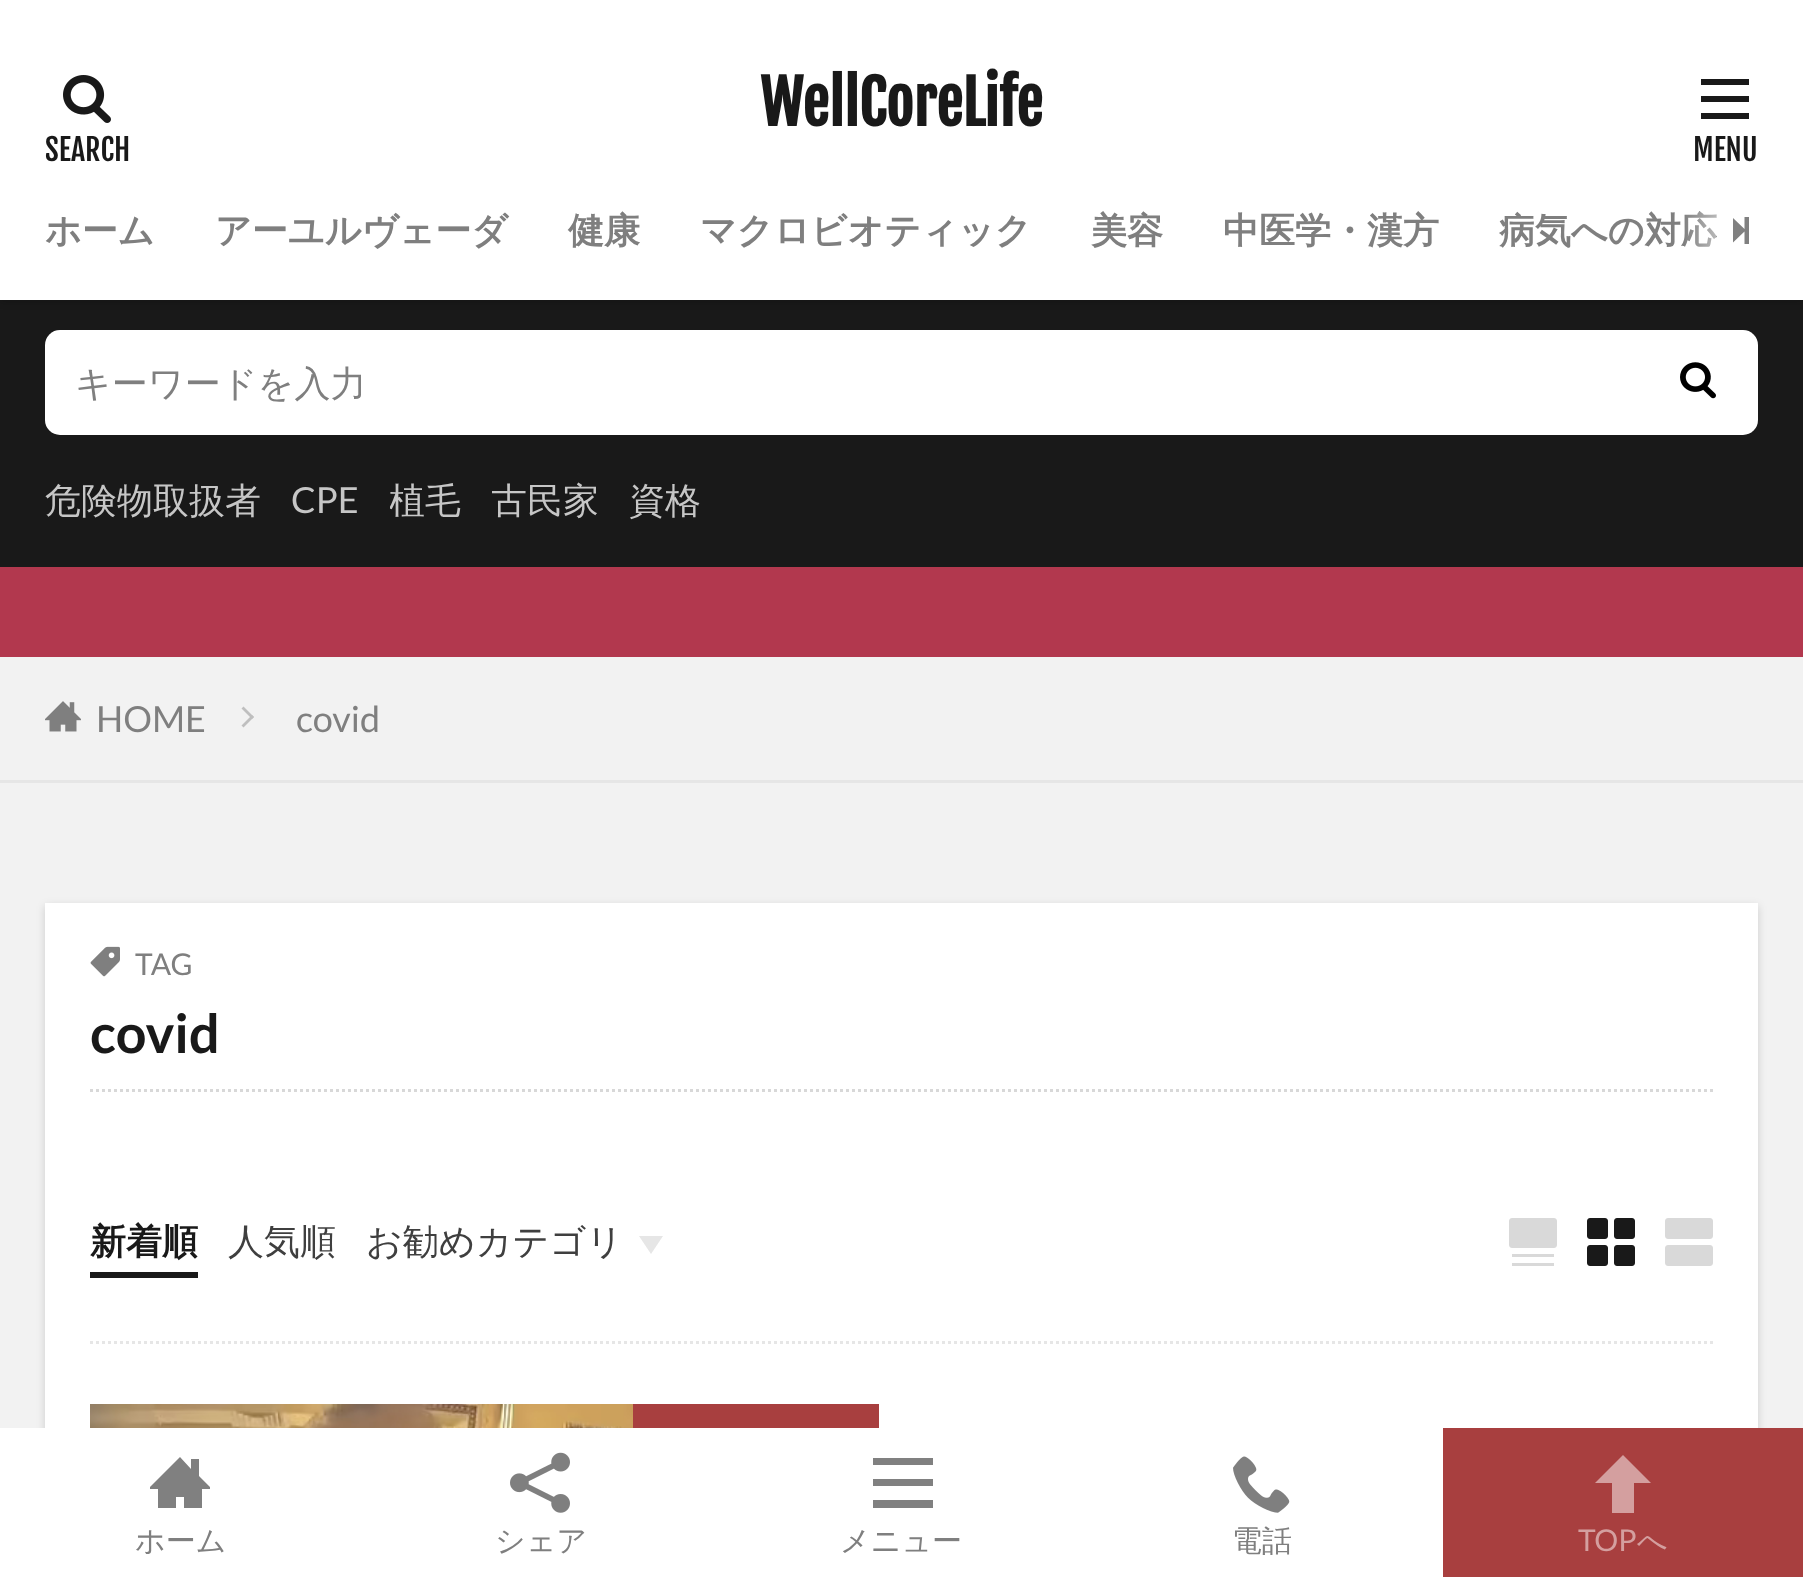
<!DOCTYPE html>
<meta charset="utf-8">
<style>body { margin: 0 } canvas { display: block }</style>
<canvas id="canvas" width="1803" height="1577"></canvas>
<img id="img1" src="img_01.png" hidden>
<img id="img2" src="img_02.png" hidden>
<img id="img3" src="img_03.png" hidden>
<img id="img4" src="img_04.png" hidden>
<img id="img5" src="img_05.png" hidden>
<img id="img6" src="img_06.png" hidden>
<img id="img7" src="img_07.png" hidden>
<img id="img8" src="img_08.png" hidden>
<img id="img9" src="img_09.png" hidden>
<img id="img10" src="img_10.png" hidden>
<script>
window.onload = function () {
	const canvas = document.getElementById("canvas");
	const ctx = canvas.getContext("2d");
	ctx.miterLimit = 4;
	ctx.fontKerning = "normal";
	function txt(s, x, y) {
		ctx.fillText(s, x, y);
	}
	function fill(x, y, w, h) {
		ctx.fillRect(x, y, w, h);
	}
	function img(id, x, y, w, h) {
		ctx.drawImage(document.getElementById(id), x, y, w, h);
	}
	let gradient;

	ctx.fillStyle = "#F2F2F2";
	fill(0, 0, 1803, 1577);
	ctx.fillStyle = "#191919";
	fill(0, 300, 1803, 267);
	ctx.fillStyle = "rgba(0, 0, 0, 0.15)";
	ctx.filter = "blur(3px)";
	ctx.beginPath();
	ctx.rect(0, 3, 1803, 300);
	ctx.fill();
	ctx.filter = "none";
	ctx.fillStyle = "#FFFFFF";
	fill(0, 0, 1803, 300);
	img("img1", 63, 75, 48, 48);
	ctx.fillStyle = "#191919";
	ctx.beginPath();
	ctx.moveTo(1701, 79);
	ctx.lineTo(1749, 79);
	ctx.lineTo(1749, 85);
	ctx.lineTo(1701, 85);
	ctx.closePath();
	ctx.moveTo(1701, 96);
	ctx.lineTo(1749, 96);
	ctx.lineTo(1749, 102);
	ctx.lineTo(1701, 102);
	ctx.closePath();
	ctx.moveTo(1701, 113);
	ctx.lineTo(1749, 113);
	ctx.lineTo(1749, 119);
	ctx.lineTo(1701, 119);
	ctx.closePath();
	ctx.fill();
	ctx.fillStyle = "#808080";
	ctx.beginPath();
	ctx.moveTo(1749, 217);
	ctx.lineTo(1749, 244);
	ctx.lineTo(1744.5, 244);
	ctx.lineTo(1744.5, 231.5);
	ctx.lineTo(1733, 242.5);
	ctx.lineTo(1733, 218);
	ctx.lineTo(1744.5, 229);
	ctx.lineTo(1744.5, 217);
	ctx.closePath();
	ctx.fill();
	ctx.fillStyle = "#FFFFFF";
	ctx.beginPath();
	ctx.roundRect(45, 330, 1593, 105, [15, 0, 0, 15]);
	ctx.fill();
	ctx.beginPath();
	ctx.roundRect(1638, 330, 120, 105, [0, 15, 15, 0]);
	ctx.fill();
	img("img2", 1680, 362, 36, 37);
	ctx.fillStyle = "#B2384E";
	fill(0, 567, 1803, 90);
	ctx.fillStyle = "#E6E6E6";
	fill(0, 780, 1803, 3);
	img("img3", 45, 701, 36, 31);
	ctx.fillStyle = "#BFBFBF";
	ctx.beginPath();
	ctx.moveTo(243.5, 706.5);
	ctx.lineTo(254, 717);
	ctx.lineTo(252, 719);
	ctx.lineTo(241.5, 708.5);
	ctx.closePath();
	ctx.fill();
	ctx.beginPath();
	ctx.moveTo(252, 715);
	ctx.lineTo(254, 717);
	ctx.lineTo(243.5, 727.5);
	ctx.lineTo(241.5, 725.5);
	ctx.closePath();
	ctx.fill();
	ctx.fillStyle = "rgba(0, 0, 0, 0.15)";
	ctx.filter = "blur(4.5px)";
	ctx.beginPath();
	ctx.rect(45, 906, 1713, 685);
	ctx.fill();
	ctx.filter = "none";
	ctx.fillStyle = "#FFFFFF";
	fill(45, 903, 1713, 525);
	img("img4", 90, 946, 30, 31);
	ctx.beginPath();
	ctx.moveTo(90, 1090.5);
	ctx.lineTo(1713, 1090.5);
	ctx.strokeStyle = "#D8D8D8";
	ctx.lineWidth = 3;
	ctx.setLineDash([3, 3]);
	ctx.stroke();
	ctx.beginPath();
	ctx.moveTo(90, 1342.5);
	ctx.lineTo(1713, 1342.5);
	ctx.strokeStyle = "#E6E6E6";
	ctx.stroke();
	ctx.fillStyle = "#191919";
	fill(90, 1272, 108, 6);
	ctx.fillStyle = "#E6E6E6";
	ctx.beginPath();
	ctx.moveTo(639, 1236);
	ctx.lineTo(663, 1236);
	ctx.lineTo(651, 1254);
	ctx.closePath();
	ctx.fill();
	img("img5", 1509, 1218, 48, 48);
	img("img6", 1587, 1218, 48, 48);
	img("img7", 1665, 1218, 48, 48);
	img("img8", 90, 1404, 543, 24);
	ctx.fillStyle = "#A83F3F";
	fill(633, 1404, 246, 24);
	ctx.fillStyle = "#FFFFFF";
	fill(0, 1428, 1443, 149);
	ctx.fillStyle = "#808080";
	ctx.beginPath();
	ctx.moveTo(210, 1487);
	ctx.lineTo(199, 1476);
	ctx.lineTo(199, 1459);
	ctx.lineTo(191, 1459);
	ctx.lineTo(191, 1469);
	ctx.lineTo(180, 1457);
	ctx.lineTo(150, 1487);
	ctx.lineTo(150, 1489);
	ctx.lineTo(158, 1489);
	ctx.lineTo(158, 1508);
	ctx.lineTo(176, 1508);
	ctx.lineTo(176, 1497);
	ctx.lineTo(184, 1497);
	ctx.lineTo(184, 1508);
	ctx.lineTo(202, 1508);
	ctx.lineTo(202, 1489);
	ctx.lineTo(210, 1489);
	ctx.closePath();
	ctx.fill();
	img("img9", 510, 1452, 60, 61);
	ctx.beginPath();
	ctx.moveTo(873, 1458);
	ctx.lineTo(933, 1458);
	ctx.lineTo(933, 1465);
	ctx.lineTo(873, 1465);
	ctx.closePath();
	ctx.moveTo(873, 1479);
	ctx.lineTo(933, 1479);
	ctx.lineTo(933, 1486);
	ctx.lineTo(873, 1486);
	ctx.closePath();
	ctx.moveTo(873, 1500);
	ctx.lineTo(933, 1500);
	ctx.lineTo(933, 1508);
	ctx.lineTo(873, 1508);
	ctx.closePath();
	ctx.fill();
	img("img10", 1233, 1456, 57, 57);
	ctx.fillStyle = "#A83F3F";
	fill(1443, 1428, 360, 149);
	ctx.fillStyle = "#D49F9F";
	ctx.beginPath();
	ctx.moveTo(1623, 1455);
	ctx.lineTo(1595, 1483);
	ctx.lineTo(1612, 1483);
	ctx.lineTo(1612, 1513);
	ctx.lineTo(1634, 1513);
	ctx.lineTo(1634, 1483);
	ctx.lineTo(1651, 1483);
	ctx.closePath();
	ctx.fill();
	ctx.font = "bold 60px Fjalla One";
	ctx.fillStyle = "#191919";
	txt("WellCoreLife", 760, 126);
	ctx.font = "30px Fjalla One";
	txt("SEARCH", 45, 161);
	txt("MENU", 1693, 161);
	ctx.font = "bold 36px WenQuanYi Zen Hei";
	ctx.fillStyle = "#7F7F7F";
	txt("ホーム", 45, 243);
	txt("アーユルヴェーダ", 215, 243);
	txt("健康", 568, 243);
	txt("マクロビオティック", 700, 243);
	txt("美容", 1091, 243);
	txt("中医学・漢方", 1223, 243);
	txt("病気への対応", 1499, 243);
	gradient = ctx.createLinearGradient(1683, 195, 1758, 195);
	gradient.addColorStop(0, "rgba(255, 255, 255, 0)");
	gradient.addColorStop(1, "#FFFFFF");
	ctx.fillStyle = gradient;
	fill(1685, 212, 31, 35);
	ctx.font = "500 36px WenQuanYi Zen Hei";
	ctx.fillStyle = "#7F7F7F";
	txt("キーワードを入力", 75, 396);
	ctx.fillStyle = "#C6C6C6";
	txt("危険物取扱者", 45, 513);
	ctx.font = "36px Lato";
	txt("CPE", 291, 513);
	ctx.save();
	ctx.beginPath();
	ctx.rect(390, 465, 102, 72);
	ctx.clip();
	ctx.font = "500 36px WenQuanYi Zen Hei";
	txt("植毛", 389, 513);
	ctx.restore();
	ctx.save();
	ctx.beginPath();
	ctx.rect(492, 465, 138, 72);
	ctx.clip();
	ctx.font = "500 36px WenQuanYi Zen Hei";
	txt("古民家", 491, 513);
	ctx.restore();
	ctx.font = "500 36px WenQuanYi Zen Hei";
	txt("資格", 629, 513);
	ctx.font = "36px Lato";
	ctx.fillStyle = "#7F7F7F";
	txt("HOME", 96, 732);
	txt("covid", 296, 732);
	ctx.font = "30px Lato";
	txt("TAG", 135, 975);
	ctx.font = "bold 54px Lato";
	ctx.fillStyle = "#191919";
	txt("covid", 90, 1053);
	ctx.font = "bold 36px WenQuanYi Zen Hei";
	txt("新着順", 90, 1254);
	ctx.font = "500 36px WenQuanYi Zen Hei";
	ctx.fillStyle = "#3F3F3F";
	txt("人気順", 228, 1254);
	txt("お勧めカテゴリ", 366, 1254);
	ctx.font = "500 30px WenQuanYi Zen Hei";
	ctx.fillStyle = "#7F7F7F";
	txt("ホーム", 135, 1551);
	txt("シェア", 495, 1551);
	txt("メニュー", 840, 1551);
	txt("電話", 1232, 1551);
	ctx.font = "30px Lato";
	ctx.fillStyle = "#D49F9F";
	txt("TOP", 1578, 1551);
	ctx.font = "500 30px WenQuanYi Zen Hei";
	txt("へ", 1637, 1551);
};
</script>
